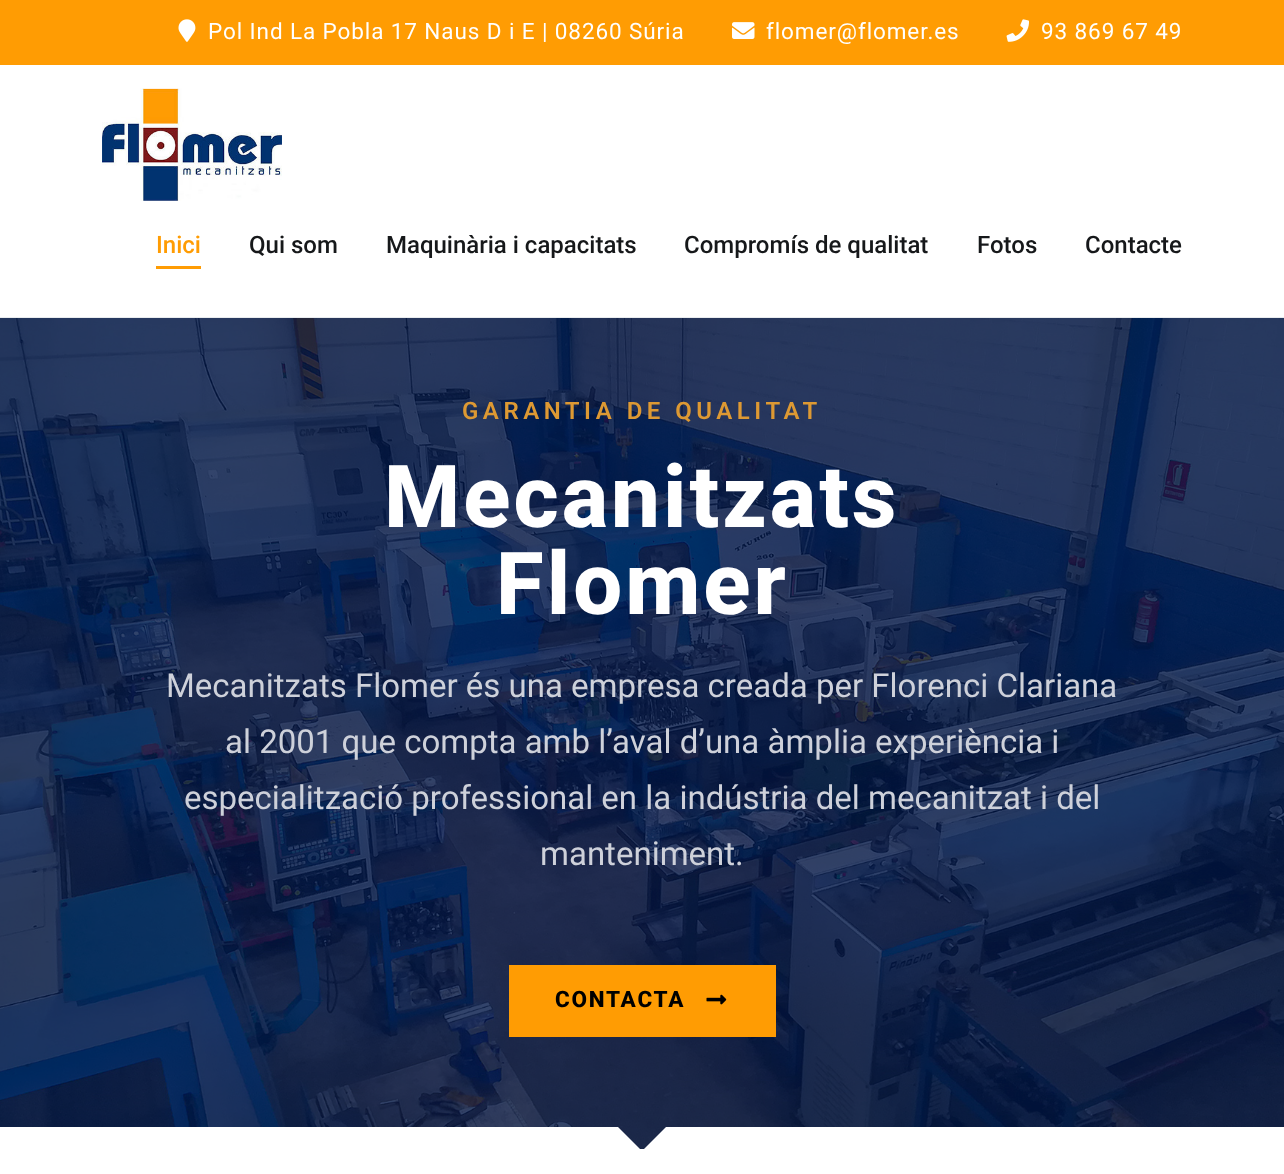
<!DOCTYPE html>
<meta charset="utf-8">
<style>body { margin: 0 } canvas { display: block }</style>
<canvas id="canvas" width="1284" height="1174"></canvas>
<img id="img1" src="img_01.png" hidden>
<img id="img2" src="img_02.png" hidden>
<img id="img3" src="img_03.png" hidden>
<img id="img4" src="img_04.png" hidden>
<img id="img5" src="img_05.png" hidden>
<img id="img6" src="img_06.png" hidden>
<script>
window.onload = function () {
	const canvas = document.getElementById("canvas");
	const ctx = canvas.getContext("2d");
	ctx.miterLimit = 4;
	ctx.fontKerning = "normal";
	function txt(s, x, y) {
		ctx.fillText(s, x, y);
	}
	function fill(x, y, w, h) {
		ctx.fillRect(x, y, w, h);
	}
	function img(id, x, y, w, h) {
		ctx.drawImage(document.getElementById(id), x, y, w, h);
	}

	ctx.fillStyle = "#FFFFFF";
	fill(0, 0, 1284, 1174);
	ctx.fillStyle = "#E9ECEF";
	fill(0, 317, 1284, 1);
	ctx.fillStyle = "#FF9C03";
	fill(0, 0, 1284, 65);
	img("img1", 178, 19, 18, 23);
	img("img2", 732, 22, 23, 17);
	img("img3", 1006, 19, 23, 23);
	img("img4", 102, 88, 180, 113);
	fill(156, 266, 45, 3);
	img("img5", 0, 318, 1284, 831);
	fill(509, 965, 267, 72);
	img("img6", 706, 994, 21, 11);
	ctx.save();
	ctx.beginPath();
	ctx.rect(0, 1127, 1284, 24);
	ctx.clip();
	ctx.fillStyle = "#FFFFFF";
	ctx.beginPath();
	ctx.moveTo(667, 1126);
	ctx.lineTo(642, 1151);
	ctx.lineTo(617, 1126);
	ctx.lineTo(-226, 1126);
	ctx.lineTo(-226, 1151);
	ctx.lineTo(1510, 1151);
	ctx.lineTo(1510, 1126);
	ctx.fill();
	ctx.restore();
	ctx.letterSpacing = "0.9px";
	ctx.font = "22.5px Roboto";
	ctx.fillStyle = "#FFFFFF";
	txt("Pol Ind La Pobla 17 Naus D i E | 08260 Súria", 208, 39);
	txt("flomer@flomer.es", 766, 39);
	txt("93 869 67 49", 1041, 39);
	ctx.letterSpacing = "0px";
	ctx.font = "500 24px Roboto";
	ctx.fillStyle = "#FF9C03";
	txt("Inici", 156, 253);
	ctx.fillStyle = "#16181A";
	txt("Qui som", 249, 253);
	txt("Maquinària i capacitats", 386, 253);
	txt("Compromís de qualitat", 684, 253);
	txt("Fotos", 977, 253);
	txt("Contacte", 1085, 253);
	ctx.letterSpacing = "4.5px";
	ctx.font = "600 24px Roboto";
	ctx.fillStyle = "#DD9933";
	txt("GARANTIA DE QUALITAT", 462, 419);
	ctx.letterSpacing = "3px";
	ctx.font = "800 87px Roboto";
	ctx.fillStyle = "#FFFFFF";
	txt("Mecanitzats", 384, 527);
	txt("Flomer", 496, 614);
	ctx.letterSpacing = "0px";
	ctx.font = "33px Roboto";
	ctx.fillStyle = "#CED1DA";
	txt("Mecanitzats Flomer és una empresa creada per Florenci Clariana", 166, 697);
	txt("al 2001 que compta amb l’aval d’una àmplia experiència i", 225, 753);
	txt("especialització professional en la indústria del mecanitzat i del", 184, 809);
	txt("manteniment.", 540, 865);
	ctx.letterSpacing = "1.75px";
	ctx.font = "800 22.5px Roboto";
	ctx.fillStyle = "#000000";
	txt("CONTACTA", 555, 1007);
};
</script>
